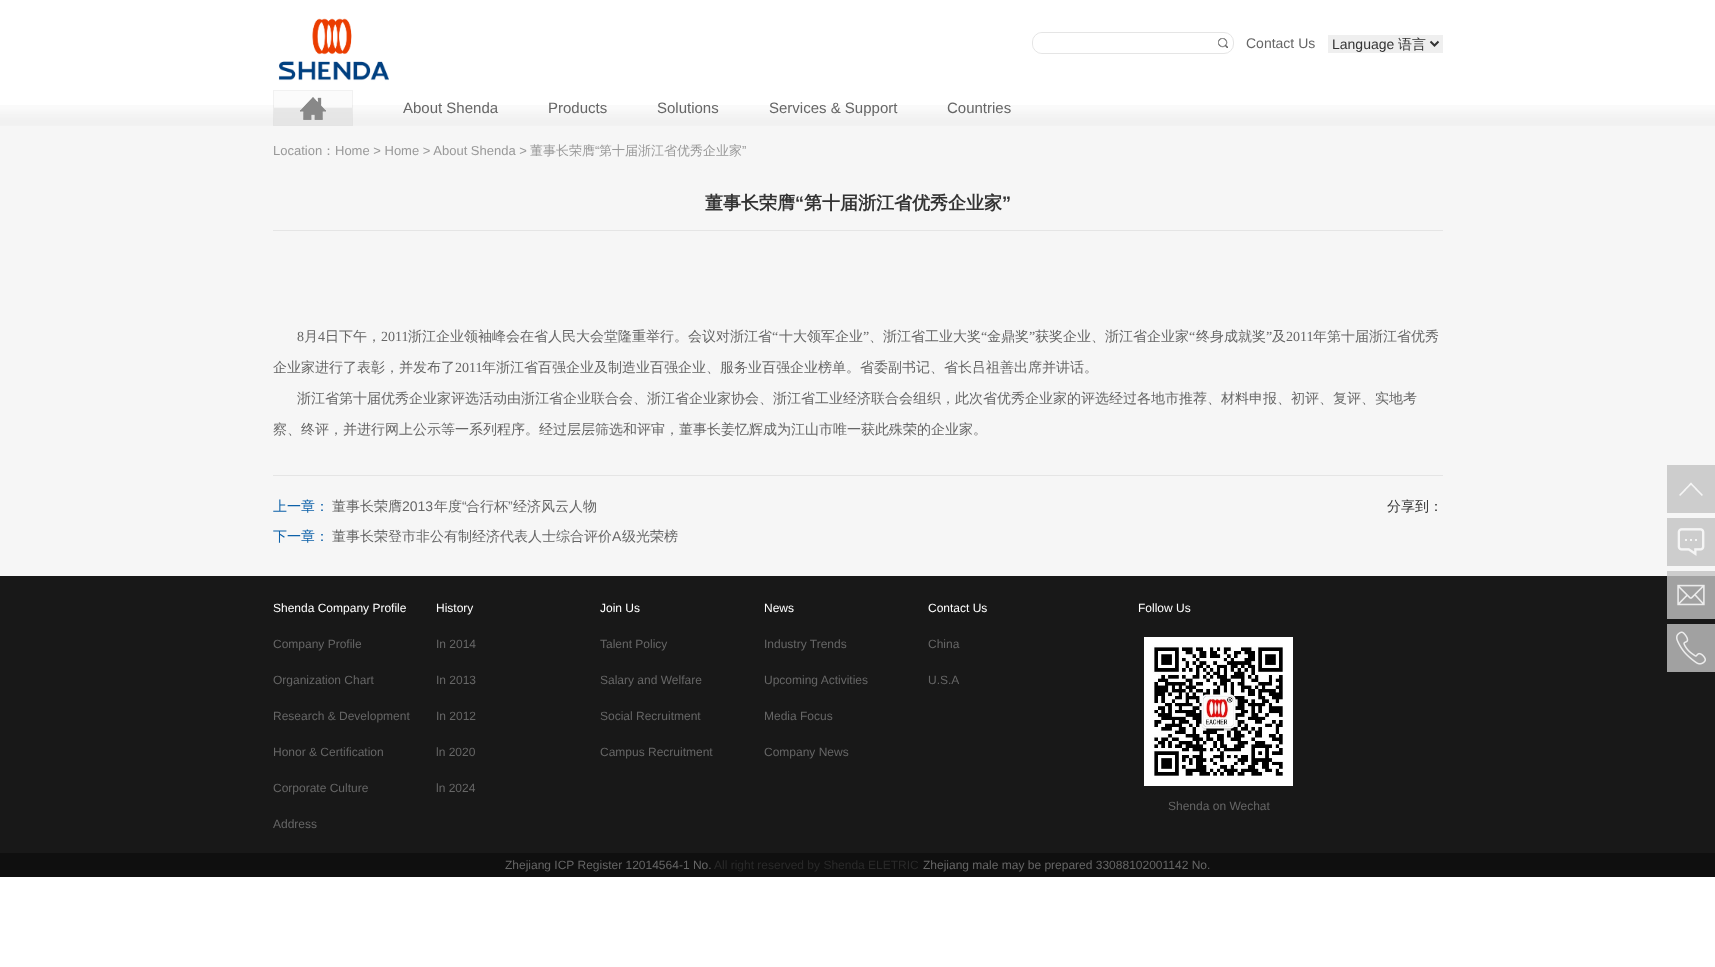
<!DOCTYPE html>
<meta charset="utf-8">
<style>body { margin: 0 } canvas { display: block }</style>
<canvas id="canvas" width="1715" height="967"></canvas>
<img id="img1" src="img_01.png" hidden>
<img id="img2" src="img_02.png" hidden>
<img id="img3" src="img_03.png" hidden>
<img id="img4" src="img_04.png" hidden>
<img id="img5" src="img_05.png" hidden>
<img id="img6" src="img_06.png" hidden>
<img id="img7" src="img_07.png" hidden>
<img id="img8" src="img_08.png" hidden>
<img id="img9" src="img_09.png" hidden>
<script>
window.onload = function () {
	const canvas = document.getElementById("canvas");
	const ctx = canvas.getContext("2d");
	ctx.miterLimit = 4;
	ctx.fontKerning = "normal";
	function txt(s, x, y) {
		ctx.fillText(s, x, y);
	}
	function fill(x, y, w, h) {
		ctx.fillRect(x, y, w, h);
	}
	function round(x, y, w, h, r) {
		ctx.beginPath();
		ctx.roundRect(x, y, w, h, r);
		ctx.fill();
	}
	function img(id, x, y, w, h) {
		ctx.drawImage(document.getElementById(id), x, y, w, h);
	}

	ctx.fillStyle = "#FFFFFF";
	fill(0, 0, 1715, 967);
	img("img1", 278, 18, 111, 63);
	ctx.beginPath();
	ctx.roundRect(1032.5, 32.5, 201, 21, 9.5);
	ctx.strokeStyle = "#E5E5E5";
	ctx.stroke();
	round(1033, 33, 180, 20, 10);
	img("img2", 1218, 38, 10, 10);
	ctx.fillStyle = "#EFEFEF";
	fill(1328, 35, 115, 18);
	ctx.beginPath();
	ctx.moveTo(1430.5, 41.5);
	ctx.lineTo(1434.5, 45.5);
	ctx.lineTo(1438.5, 41.5);
	ctx.strokeStyle = "#333333";
	ctx.lineWidth = 2;
	ctx.stroke();
	img("img3", 0, 105, 1715, 21);
	img("img4", 273, 90, 80, 36);
	ctx.fillStyle = "#F6F6F6";
	fill(0, 126, 1715, 450);
	ctx.fillStyle = "#CDCDCD";
	fill(1667, 571, 48, 5);
	ctx.fillStyle = "#E5E5E5";
	fill(273, 230, 1170, 1);
	fill(273, 475, 1170, 1);
	ctx.fillStyle = "#CDCDCD";
	fill(1667, 465, 48, 48);
	img("img5", 1679, 482, 24, 14);
	fill(1667, 518, 48, 48);
	img("img6", 1677, 528, 28, 28);
	ctx.fillStyle = "#181818";
	fill(0, 576, 1715, 277);
	ctx.fillStyle = "#A1A1A1";
	fill(1667, 576, 48, 43);
	img("img7", 1677, 584, 28, 22);
	fill(1667, 624, 48, 48);
	img("img8", 1676, 631, 30, 34);
	img("img9", 1144, 637, 149, 149);
	ctx.fillStyle = "#0F0F0F";
	fill(0, 853, 1715, 24);
	ctx.font = "14px Liberation Sans";
	ctx.fillStyle = "#666666";
	txt("Contact Us", 1246, 48);
	ctx.fillStyle = "#333333";
	txt("Language", 1332, 49);
	ctx.font = "500 14px WenQuanYi Zen Hei";
	txt("语言", 1398, 49);
	ctx.font = "15px Liberation Sans";
	ctx.fillStyle = "#666666";
	txt("About Shenda", 403, 113);
	txt("Products", 548, 113);
	txt("Solutions", 657, 113);
	txt("Services & Support", 769, 113);
	txt("Countries", 947, 113);
	ctx.font = "13px Liberation Sans";
	ctx.fillStyle = "#999999";
	txt("Location", 273, 155);
	txt("Home > Home > About Shenda >", 335, 155);
	ctx.font = "500 13px WenQuanYi Zen Hei";
	txt("董事长荣膺", 530, 155);
	ctx.font = "13px Liberation Sans";
	txt("“", 595, 155);
	ctx.font = "500 13px WenQuanYi Zen Hei";
	txt("第十届浙江省优秀企业家", 599, 155);
	ctx.font = "13px Liberation Sans";
	txt("”", 742, 155);
	ctx.font = "500 13px WenQuanYi Zen Hei";
	txt("：", 322, 155);
	ctx.font = "bold 18px WenQuanYi Zen Hei";
	ctx.fillStyle = "#333333";
	txt("董事长荣膺", 705, 209);
	ctx.font = "bold 18px Liberation Sans";
	txt("“", 795, 209);
	ctx.font = "bold 18px WenQuanYi Zen Hei";
	txt("第十届浙江省优秀企业家", 804, 209);
	ctx.font = "bold 18px Liberation Sans";
	txt("”", 1002, 209);
	ctx.font = "14px Liberation Serif";
	ctx.fillStyle = "#666666";
	txt("8", 297, 341);
	ctx.font = "500 14px WenQuanYi Zen Hei";
	txt("月", 304, 341);
	ctx.font = "14px Liberation Serif";
	txt("4", 318, 341);
	ctx.font = "500 14px WenQuanYi Zen Hei";
	txt("日下午，", 325, 341);
	ctx.font = "14px Liberation Serif";
	txt("2011", 381, 341);
	ctx.font = "500 14px WenQuanYi Zen Hei";
	txt("浙江企业领袖峰会在省人民大会堂隆重举行。会议对浙江省", 408, 341);
	ctx.font = "14px Liberation Serif";
	txt("“", 772, 341);
	ctx.font = "500 14px WenQuanYi Zen Hei";
	txt("十大领军企业", 779, 341);
	ctx.font = "14px Liberation Serif";
	txt("”", 863, 341);
	ctx.font = "500 14px WenQuanYi Zen Hei";
	txt("、浙江省工业大奖", 869, 341);
	ctx.font = "14px Liberation Serif";
	txt("“", 981, 341);
	ctx.font = "500 14px WenQuanYi Zen Hei";
	txt("金鼎奖", 987, 341);
	ctx.font = "14px Liberation Serif";
	txt("”", 1029, 341);
	ctx.font = "500 14px WenQuanYi Zen Hei";
	txt("获奖企业、浙江省企业家", 1035, 341);
	ctx.font = "14px Liberation Serif";
	txt("“", 1189, 341);
	ctx.font = "500 14px WenQuanYi Zen Hei";
	txt("终身成就奖", 1196, 341);
	ctx.font = "14px Liberation Serif";
	txt("”", 1266, 341);
	ctx.font = "500 14px WenQuanYi Zen Hei";
	txt("及", 1272, 341);
	ctx.font = "14px Liberation Serif";
	txt("2011", 1286, 341);
	ctx.font = "500 14px WenQuanYi Zen Hei";
	txt("年第十届浙江省优秀", 1313, 341);
	txt("企业家进行了表彰，并发布了", 273, 372);
	ctx.font = "14px Liberation Serif";
	txt("2011", 455, 372);
	ctx.font = "500 14px WenQuanYi Zen Hei";
	txt("年浙江省百强企业及制造业百强企业、服务业百强企业榜单。省委副书记、省长吕祖善出席并讲话。", 482, 372);
	txt("浙江省第十届优秀企业家评选活动由浙江省企业联合会、浙江省企业家协会、浙江省工业经济联合会组织，此次省优秀企业家的评选经过各地市推荐、材料申报、初评、复评、实地考", 297, 403);
	txt("察、终评，并进行网上公示等一系列程序。经过层层筛选和评审，董事长姜忆辉成为江山市唯一获此殊荣的企业家。", 273, 434);
	ctx.fillStyle = "#0D61A9";
	txt("上一章：", 273, 511);
	ctx.fillStyle = "#666666";
	txt("董事长荣膺", 332, 511);
	ctx.font = "14px Liberation Sans";
	txt("2013", 402, 511);
	ctx.font = "500 14px WenQuanYi Zen Hei";
	txt("年度", 434, 511);
	ctx.font = "14px Liberation Sans";
	txt("“", 462, 511);
	ctx.font = "500 14px WenQuanYi Zen Hei";
	txt("合行杯", 466, 511);
	ctx.font = "14px Liberation Sans";
	txt("”", 508, 511);
	ctx.font = "500 14px WenQuanYi Zen Hei";
	txt("经济风云人物", 513, 511);
	ctx.fillStyle = "#333333";
	txt("分享到：", 1387, 511);
	ctx.fillStyle = "#0D61A9";
	txt("下一章：", 273, 541);
	ctx.fillStyle = "#666666";
	txt("董事长荣登市非公有制经济代表人士综合评价", 332, 541);
	ctx.font = "14px Liberation Sans";
	txt("A", 612, 541);
	ctx.font = "500 14px WenQuanYi Zen Hei";
	txt("级光荣榜", 622, 541);
	ctx.font = "12px Liberation Sans";
	ctx.fillStyle = "#FFFFFF";
	txt("Shenda Company Profile", 273, 612);
	ctx.fillStyle = "#666666";
	txt("Company Profile", 273, 648);
	txt("Organization Chart", 273, 684);
	txt("Research & Development", 273, 720);
	txt("Honor & Certification", 273, 756);
	txt("Corporate Culture", 273, 792);
	txt("Address", 273, 828);
	ctx.fillStyle = "#FFFFFF";
	txt("History", 436, 612);
	ctx.fillStyle = "#666666";
	txt("In 2014", 436, 648);
	txt("In 2013", 436, 684);
	txt("In 2012", 436, 720);
	txt("ln 2020", 436, 756);
	txt("ln 2024", 436, 792);
	ctx.fillStyle = "#FFFFFF";
	txt("Join Us", 600, 612);
	ctx.fillStyle = "#666666";
	txt("Talent Policy", 600, 648);
	txt("Salary and Welfare", 600, 684);
	txt("Social Recruitment", 600, 720);
	txt("Campus Recruitment", 600, 756);
	ctx.fillStyle = "#FFFFFF";
	txt("News", 764, 612);
	ctx.fillStyle = "#666666";
	txt("Industry Trends", 764, 648);
	txt("Upcoming Activities", 764, 684);
	txt("Media Focus", 764, 720);
	txt("Company News", 764, 756);
	ctx.fillStyle = "#FFFFFF";
	txt("Contact Us", 928, 612);
	ctx.fillStyle = "#666666";
	txt("China", 928, 648);
	txt("U.S.A", 928, 684);
	ctx.fillStyle = "#FFFFFF";
	txt("Follow Us", 1138, 612);
	ctx.fillStyle = "#666666";
	txt("Shenda on Wechat", 1168, 810);
	txt("Zhejiang ICP Register 12014564-1 No.", 505, 869);
	ctx.fillStyle = "#2A2A2A";
	txt("All right reserved by Shenda ELETRIC", 714, 869);
	ctx.fillStyle = "#666666";
	txt("Zhejiang male may be prepared 33088102001142 No.", 923, 869);
};
</script>
